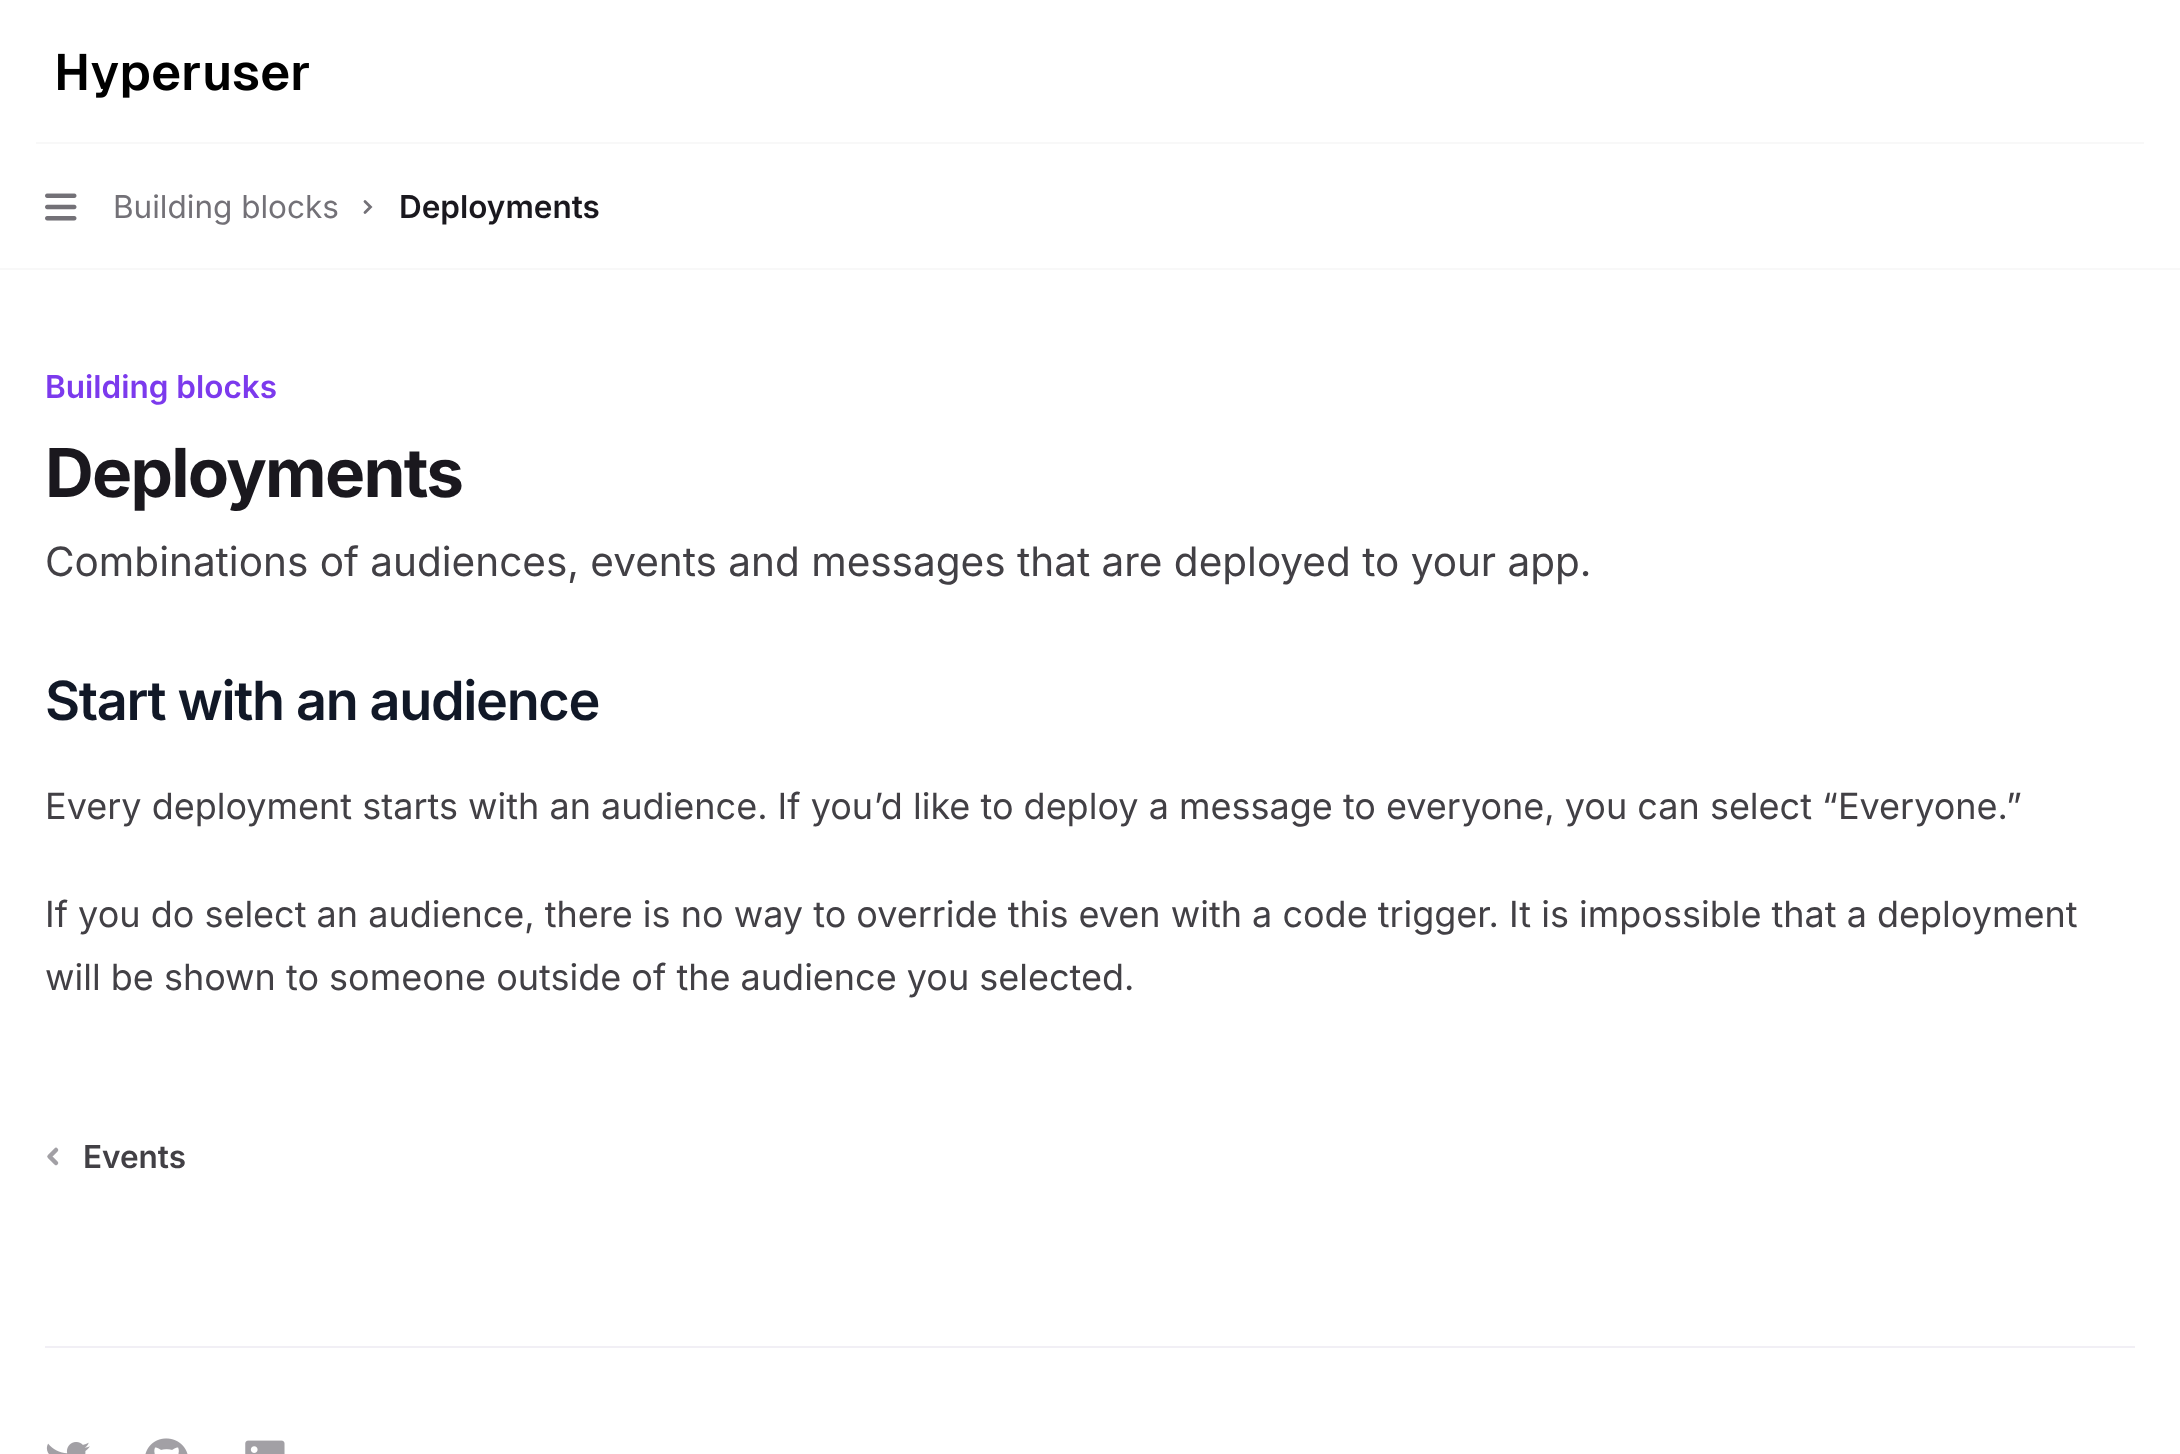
<!DOCTYPE html>
<meta charset="utf-8">
<style>body { margin: 0 } canvas { display: block }</style>
<canvas id="canvas" width="2180" height="1454"></canvas>
<img id="img1" src="img_01.png" hidden>
<img id="img2" src="img_02.png" hidden>
<img id="img3" src="img_03.png" hidden>
<img id="img4" src="img_04.png" hidden>
<img id="img5" src="img_05.png" hidden>
<script>
window.onload = function () {
	const canvas = document.getElementById("canvas");
	const ctx = canvas.getContext("2d");
	ctx.miterLimit = 4;
	ctx.fontKerning = "normal";
	function txt(s, x, y) {
		ctx.fillText(s, x, y);
	}
	function fill(x, y, w, h) {
		ctx.fillRect(x, y, w, h);
	}
	function img(id, x, y, w, h) {
		ctx.drawImage(document.getElementById(id), x, y, w, h);
	}

	ctx.fillStyle = "#FFFFFF";
	fill(0, 0, 2180, 1454);
	ctx.fillStyle = "#F8F8F8";
	fill(36, 142, 2108, 2);
	img("img1", 58, 53, 251, 45);
	img("img2", 45, 193, 32, 28);
	ctx.beginPath();
	ctx.moveTo(365, 201.5);
	ctx.lineTo(370.5, 207);
	ctx.lineTo(365, 212.5);
	ctx.strokeStyle = "#737177";
	ctx.lineWidth = 2.8;
	ctx.lineCap = "round";
	ctx.stroke();
	fill(0, 268, 2180, 2);
	ctx.beginPath();
	ctx.moveTo(56, 1150);
	ctx.lineTo(49.5, 1156.5);
	ctx.lineTo(56, 1163);
	ctx.strokeStyle = "#A2A0A5";
	ctx.lineWidth = 4.5;
	ctx.lineJoin = "round";
	ctx.stroke();
	ctx.fillStyle = "#F1EFF5";
	fill(45, 1346, 2090, 2);
	img("img3", 46, 1442, 44, 12);
	img("img4", 145, 1438, 43, 16);
	img("img5", 245, 1440, 40, 14);
	ctx.font = "31.5px Inter";
	ctx.fillStyle = "#737177";
	txt("Building blocks", 113, 218);
	ctx.font = "600 31.5px Inter";
	ctx.fillStyle = "#1A181E";
	txt("Deployments", 399, 218);
	ctx.fillStyle = "#7C3AED";
	txt("Building blocks", 45, 398);
	ctx.letterSpacing = "-1.75px";
	ctx.font = "bold 67.5px Inter";
	ctx.fillStyle = "#1A181E";
	txt("Deployments", 45, 497);
	ctx.letterSpacing = "0px";
	ctx.font = "40.5px Inter";
	ctx.fillStyle = "#424045";
	txt("Combinations of audiences, events and messages that are deployed to your app.", 45, 576);
	ctx.letterSpacing = "-1.35px";
	ctx.font = "600 54px Inter";
	ctx.fillStyle = "#111827";
	txt("Start with an audience", 45, 720);
	ctx.letterSpacing = "0px";
	ctx.font = "36px Inter";
	ctx.fillStyle = "#424045";
	txt("Every deployment starts with an audience. If you’d like to deploy a message to everyone, you can select “Everyone.”", 45, 819);
	txt("If you do select an audience, there is no way to override this even with a code trigger. It is impossible that a deployment", 45, 927);
	txt("will be shown to someone outside of the audience you selected.", 45, 990);
	ctx.font = "600 31.5px Inter";
	txt("Events", 83, 1168);
};
</script>
